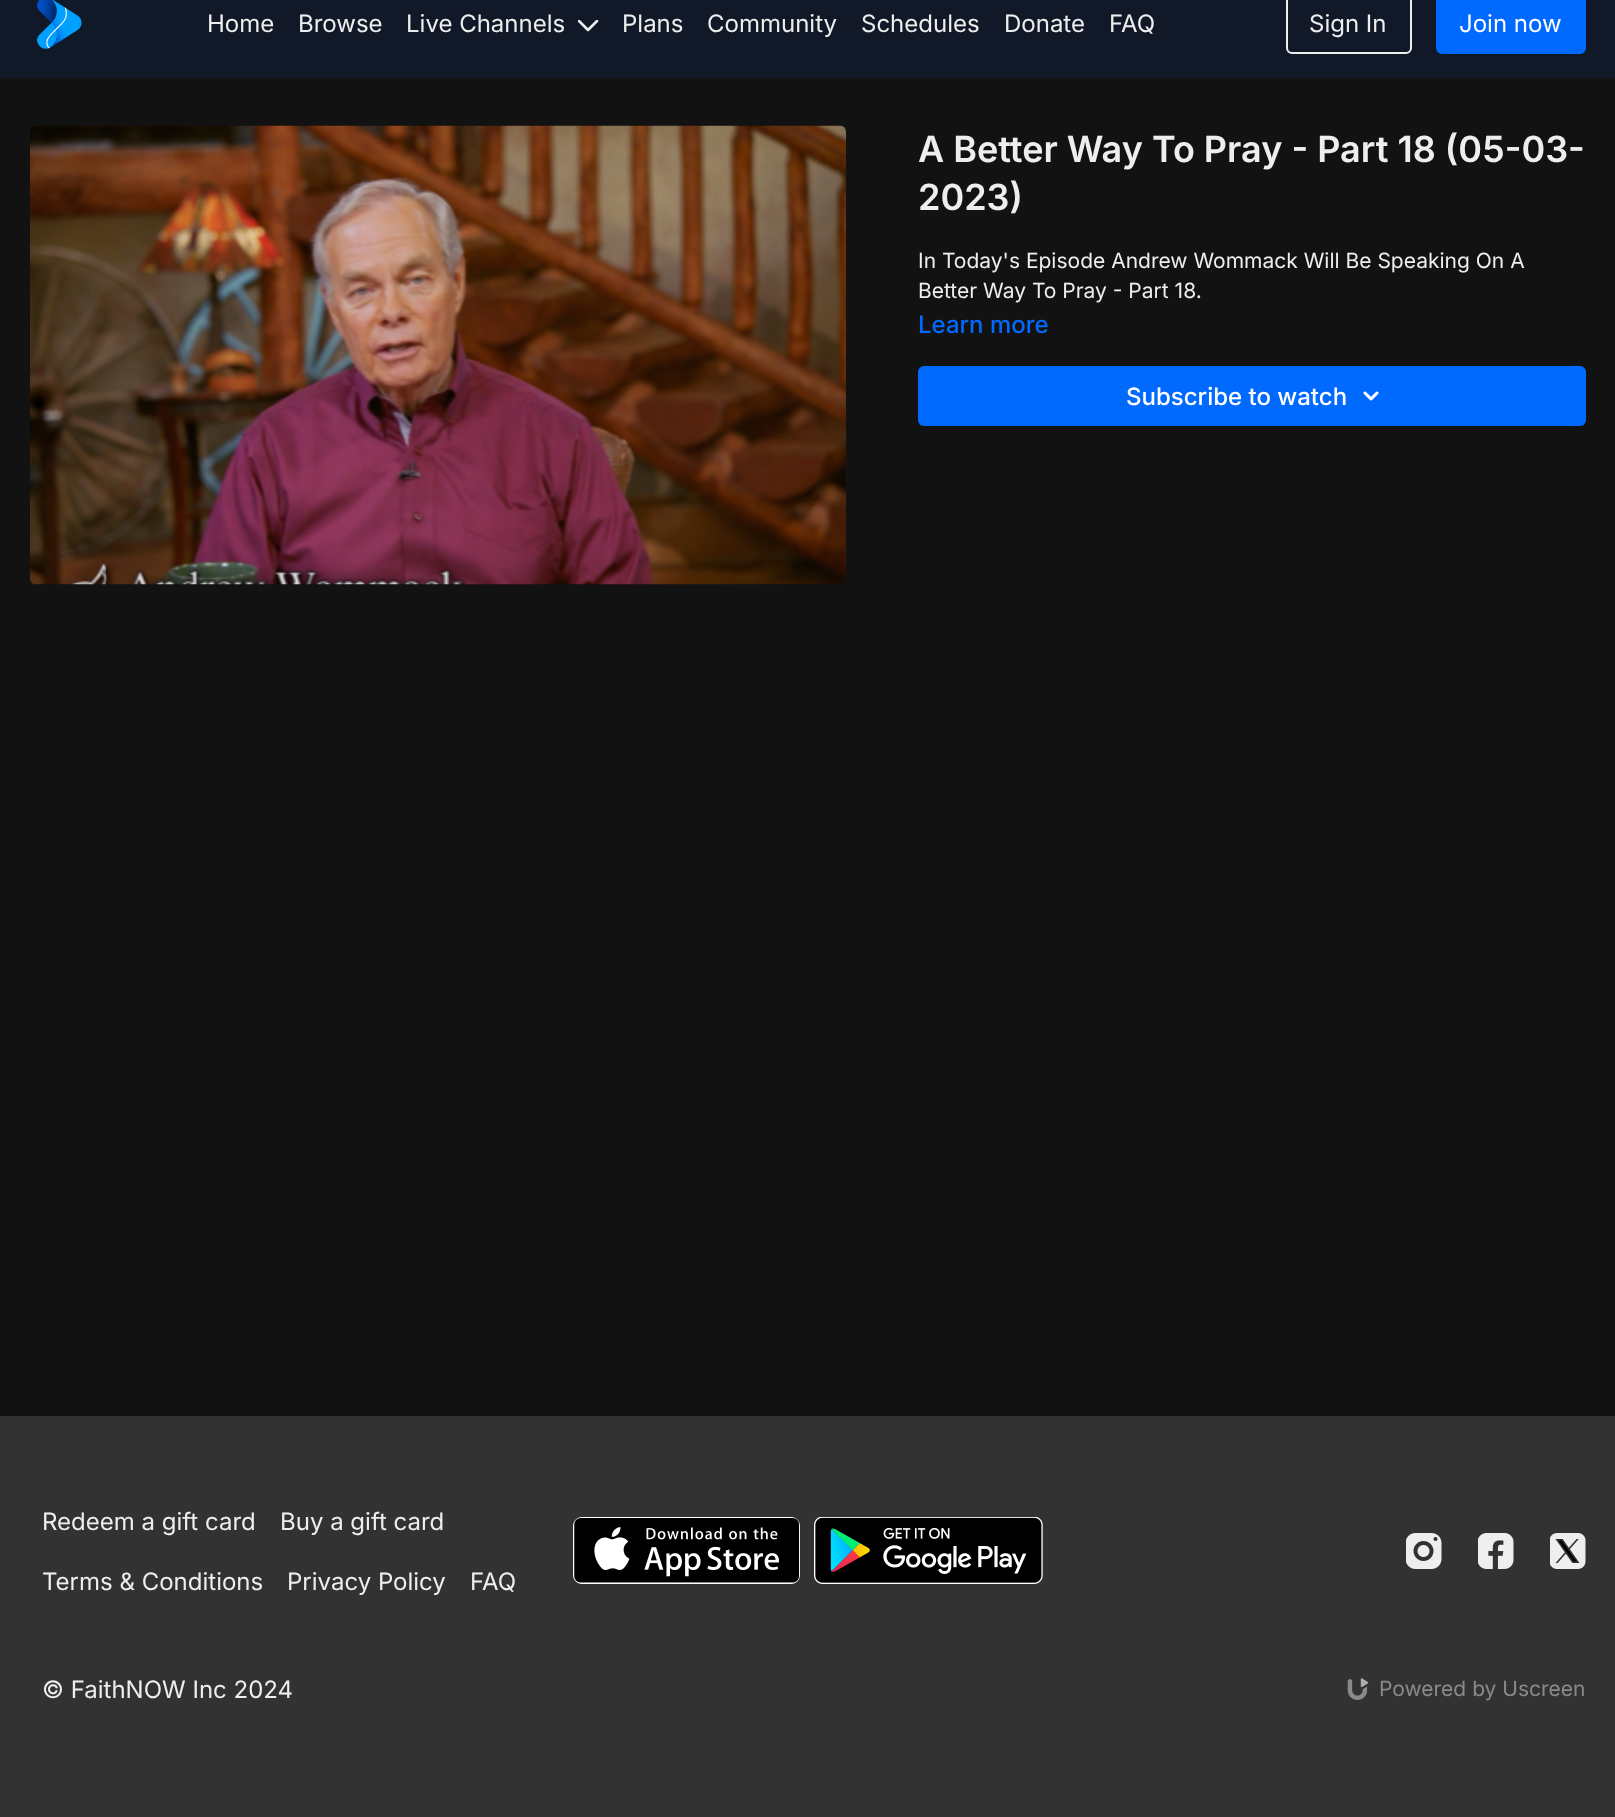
<!DOCTYPE html>
<meta charset="utf-8">
<style>body { margin: 0 } canvas { display: block }</style>
<canvas id="canvas" width="1615" height="1817"></canvas>
<img id="img1" src="img_01.png" hidden>
<img id="img2" src="img_02.png" hidden>
<img id="img3" src="img_03.png" hidden>
<img id="img4" src="img_04.png" hidden>
<img id="img5" src="img_05.png" hidden>
<img id="img6" src="img_06.png" hidden>
<img id="img7" src="img_07.png" hidden>
<img id="img8" src="img_08.png" hidden>
<img id="img9" src="img_09.png" hidden>
<img id="img10" src="img_10.png" hidden>
<script>
window.onload = function () {
	const canvas = document.getElementById("canvas");
	const ctx = canvas.getContext("2d");
	ctx.miterLimit = 4;
	ctx.fontKerning = "normal";
	function txt(s, x, y) {
		ctx.fillText(s, x, y);
	}
	function fill(x, y, w, h) {
		ctx.fillRect(x, y, w, h);
	}
	function round(x, y, w, h, r) {
		ctx.beginPath();
		ctx.roundRect(x, y, w, h, r);
		ctx.fill();
	}
	function img(id, x, y, w, h) {
		ctx.drawImage(document.getElementById(id), x, y, w, h);
	}

	ctx.fillStyle = "#121212";
	fill(0, 0, 1615, 1817);
	ctx.fillStyle = "#111827";
	fill(0, 0, 1615, 78);
	img("img1", 36, 0, 46, 49);
	img("img2", 578, 20, 21, 12);
	ctx.beginPath();
	ctx.roundRect(1287, -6, 124, 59, 5);
	ctx.strokeStyle = "#EEEEEE";
	ctx.lineWidth = 2;
	ctx.stroke();
	ctx.fillStyle = "#006AFF";
	ctx.beginPath();
	ctx.roundRect(1437, -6, 148, 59, 5);
	ctx.fill();
	ctx.strokeStyle = "#006AFF";
	ctx.stroke();
	img("img3", 30, 125, 816, 460);
	round(918, 366, 668, 60, 6);
	img("img4", 1363, 391, 16, 10);
	ctx.fillStyle = "#323232";
	fill(0, 1416, 1615, 401);
	img("img5", 573, 1517, 227, 67);
	img("img6", 814, 1517, 229, 67);
	img("img7", 1406, 1533, 36, 36);
	img("img8", 1478, 1533, 36, 36);
	img("img9", 1550, 1533, 36, 36);
	img("img10", 1347, 1678, 22, 22);
	ctx.font = "24px Inter";
	ctx.fillStyle = "#EEEEEE";
	txt("Home", 207, 32);
	txt("Browse", 298, 32);
	txt("Live Channels", 406, 32);
	txt("Plans", 622, 32);
	txt("Community", 707, 32);
	txt("Schedules", 861, 32);
	txt("Donate", 1004, 32);
	txt("FAQ", 1109, 32);
	txt("Sign In", 1309, 32);
	ctx.fillStyle = "#FFFFFF";
	txt("Join now", 1459, 32);
	ctx.font = "600 36px Inter";
	ctx.fillStyle = "#EEEEEE";
	txt("A Better Way To Pray - Part 18 (05-03-", 918, 162);
	txt("2023)", 918, 210);
	ctx.font = "21px Inter";
	txt("In Today's Episode Andrew Wommack Will Be Speaking On A", 918, 268);
	txt("Better Way To Pray - Part 18.", 918, 298);
	ctx.font = "500 24px Inter";
	ctx.fillStyle = "#006AFF";
	txt("Learn more", 918, 333);
	ctx.fillStyle = "#FFFFFF";
	txt("Subscribe to watch", 1126, 405);
	ctx.font = "24px Inter";
	ctx.fillStyle = "#EEEEEE";
	txt("Redeem a gift card", 42, 1530);
	txt("Buy a gift card", 280, 1530);
	txt("Terms & Conditions", 42, 1590);
	txt("Privacy Policy", 287, 1590);
	txt("FAQ", 470, 1590);
	txt("© FaithNOW Inc 2024", 42, 1698);
	ctx.font = "21px Inter";
	ctx.fillStyle = "#8A8A8A";
	txt("Powered by Uscreen", 1379, 1696);
};
</script>
